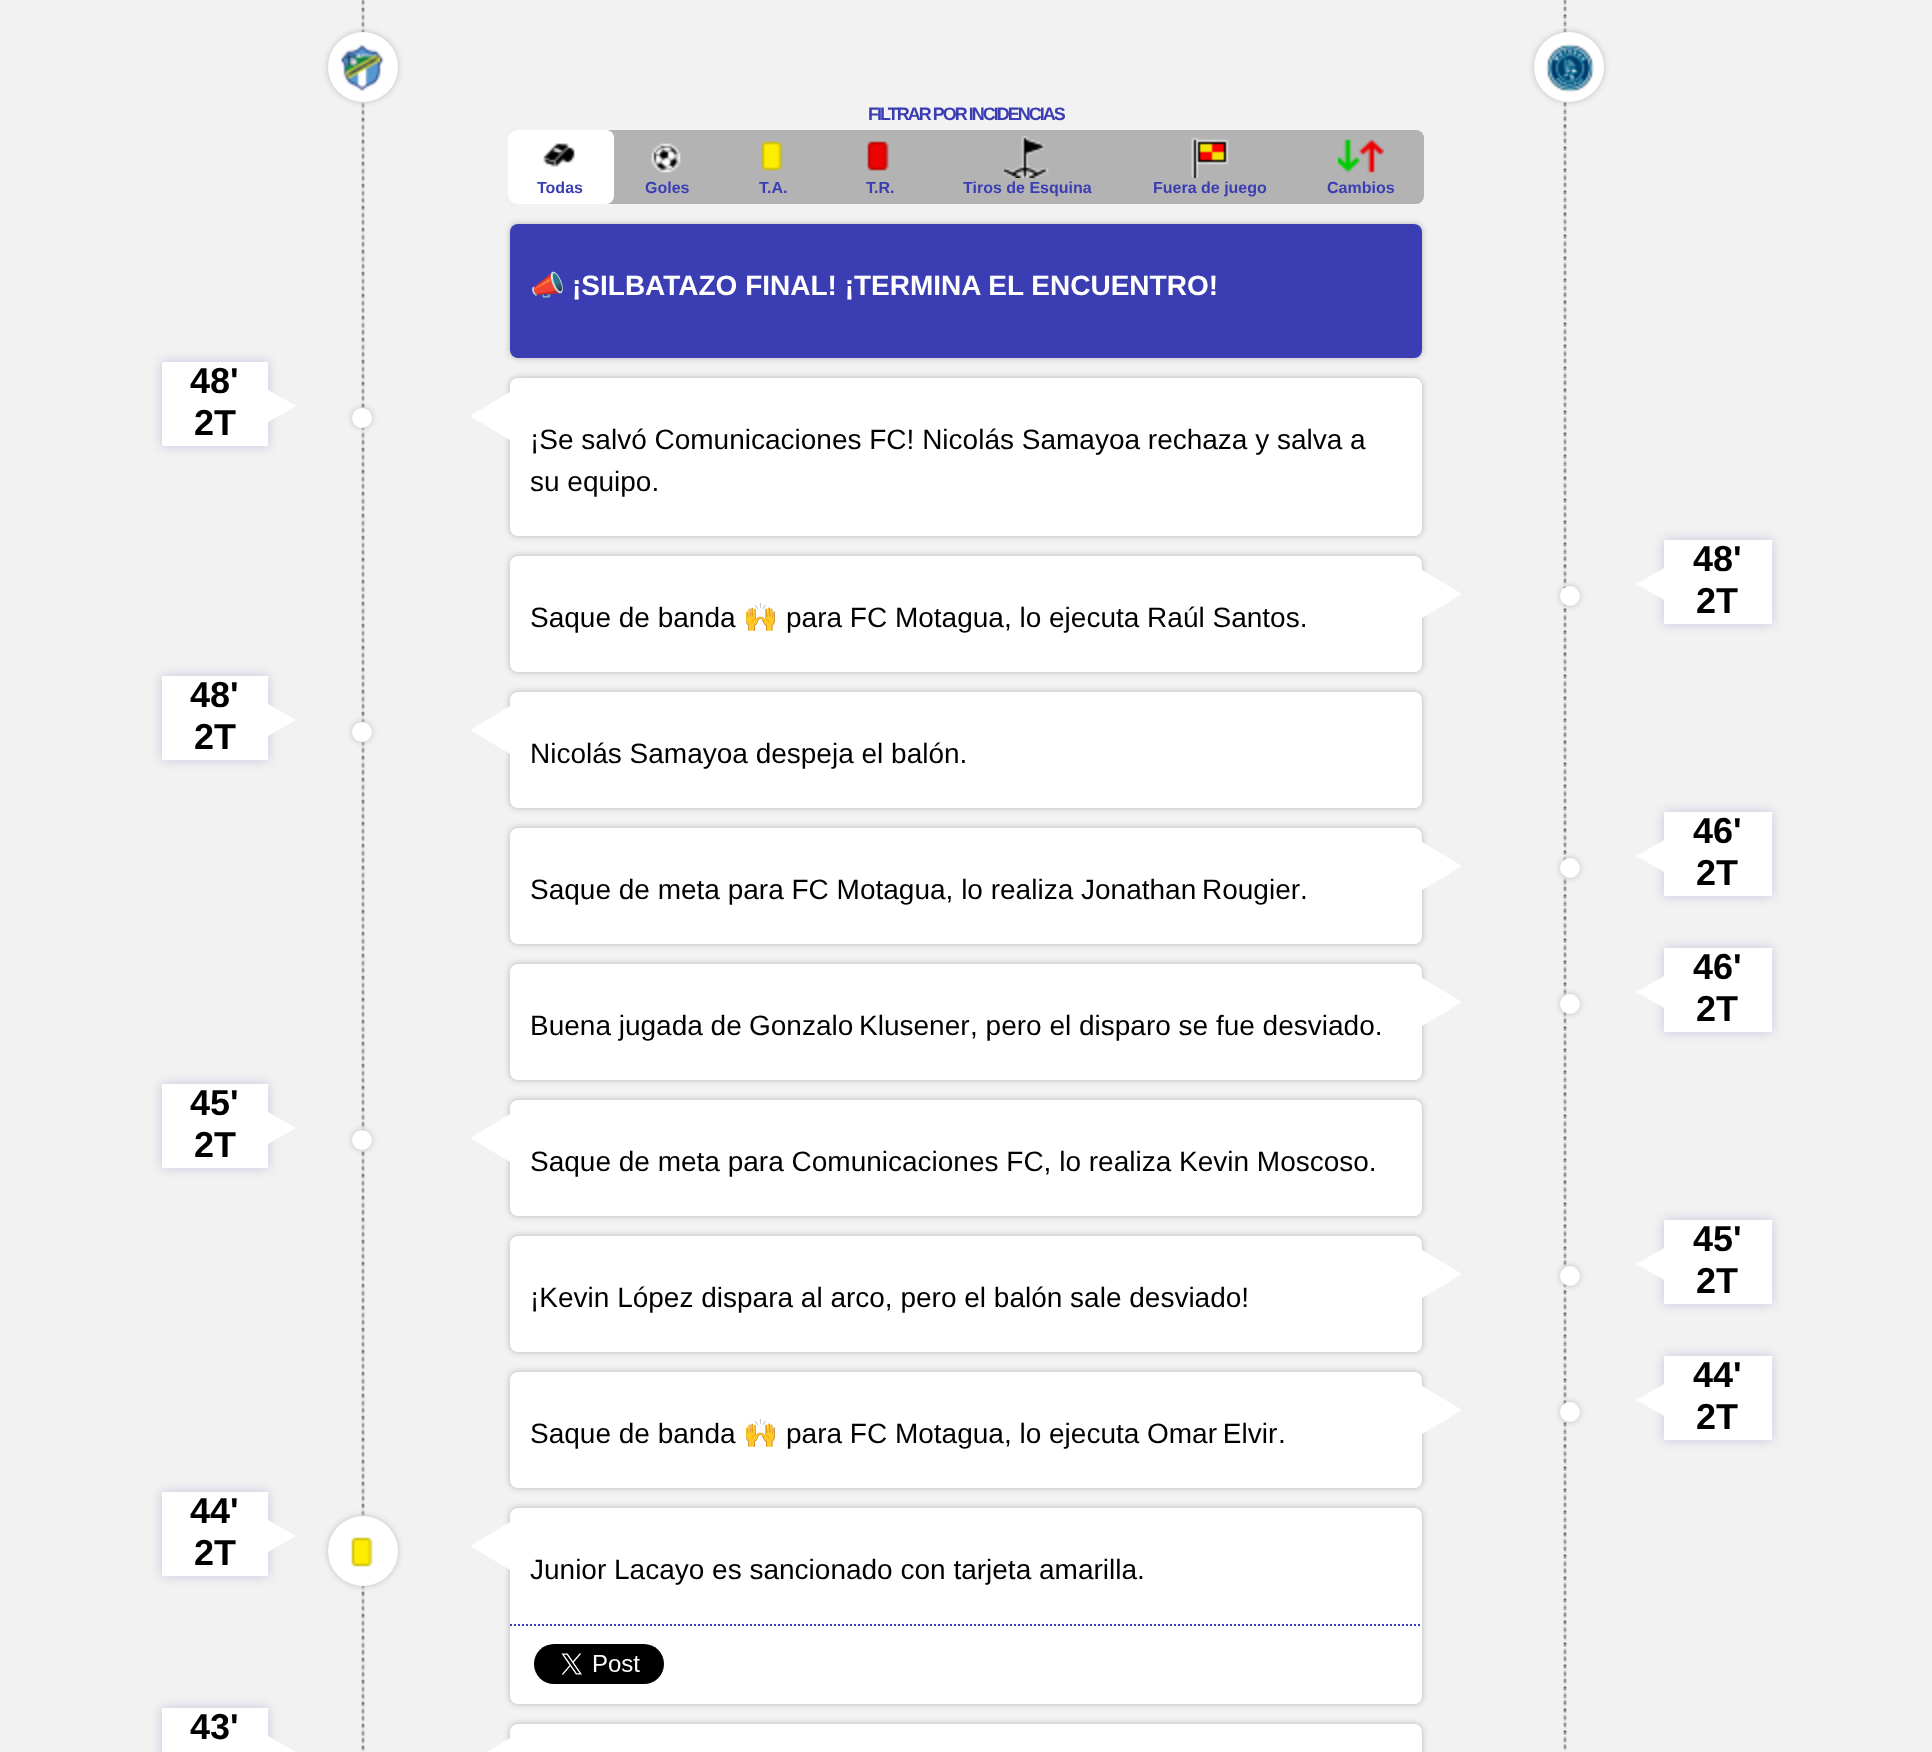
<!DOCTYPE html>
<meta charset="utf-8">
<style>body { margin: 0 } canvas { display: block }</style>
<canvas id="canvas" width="1932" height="1752"></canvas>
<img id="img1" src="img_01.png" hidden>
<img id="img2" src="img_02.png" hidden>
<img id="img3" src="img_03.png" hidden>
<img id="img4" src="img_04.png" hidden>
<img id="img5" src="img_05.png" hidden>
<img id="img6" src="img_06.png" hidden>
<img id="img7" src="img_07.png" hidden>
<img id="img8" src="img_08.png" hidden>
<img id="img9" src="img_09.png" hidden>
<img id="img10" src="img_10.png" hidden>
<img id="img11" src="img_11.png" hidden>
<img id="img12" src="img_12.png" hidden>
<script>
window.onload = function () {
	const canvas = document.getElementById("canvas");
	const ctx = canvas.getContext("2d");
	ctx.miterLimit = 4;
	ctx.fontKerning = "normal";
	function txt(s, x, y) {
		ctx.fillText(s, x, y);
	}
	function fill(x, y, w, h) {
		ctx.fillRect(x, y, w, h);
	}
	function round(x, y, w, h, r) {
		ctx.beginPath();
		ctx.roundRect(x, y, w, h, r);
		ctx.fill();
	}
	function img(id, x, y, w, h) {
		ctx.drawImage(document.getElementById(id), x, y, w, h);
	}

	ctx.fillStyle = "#F2F2F2";
	fill(0, 0, 1932, 1752);
	img("img1", 361, 0, 1206, 1752);
	ctx.fillStyle = "#BFBFBF";
	ctx.filter = "blur(3px)";
	ctx.beginPath();
	ctx.roundRect(328, 32, 70, 70, 35);
	ctx.fill();
	ctx.filter = "none";
	ctx.fillStyle = "#FFFFFF";
	ctx.beginPath();
	ctx.arc(363, 67, 35, 0, Math.PI * 2);
	ctx.fill();
	img("img2", 340, 44, 45, 48);
	ctx.fillStyle = "#BFBFBF";
	ctx.filter = "blur(3px)";
	ctx.beginPath();
	ctx.roundRect(1534, 32, 70, 70, 35);
	ctx.fill();
	ctx.filter = "none";
	ctx.fillStyle = "#FFFFFF";
	ctx.beginPath();
	ctx.arc(1569, 67, 35, 0, Math.PI * 2);
	ctx.fill();
	img("img3", 1546, 44, 48, 48);
	ctx.fillStyle = "#B3B3B3";
	round(508, 130, 916, 74, 8);
	ctx.fillStyle = "#FFFFFF";
	round(508, 130, 106, 74, 8);
	img("img4", 543, 143, 32, 24);
	img("img5", 651, 143, 30, 30);
	img("img6", 761, 141, 22, 30);
	img("img7", 867, 141, 22, 30);
	img("img8", 1004, 136, 45, 42);
	img("img9", 1191, 137, 38, 41);
	img("img10", 1338, 139, 46, 34);
	ctx.fillStyle = "#B3B3B3";
	ctx.filter = "blur(3px)";
	ctx.beginPath();
	ctx.roundRect(510, 224, 912, 134, 8);
	ctx.fill();
	ctx.filter = "none";
	ctx.fillStyle = "#3B3DB3";
	round(510, 224, 912, 134, 8);
	ctx.fillStyle = "rgba(59, 61, 179, 0.25)";
	ctx.filter = "blur(6px)";
	ctx.beginPath();
	ctx.rect(162, 362, 106, 84);
	ctx.fill();
	ctx.filter = "none";
	ctx.fillStyle = "#FFFFFF";
	fill(162, 362, 106, 84);
	ctx.beginPath();
	ctx.moveTo(268, 422);
	ctx.lineTo(268, 390);
	ctx.lineTo(296, 406);
	ctx.closePath();
	ctx.fill();
	ctx.fillStyle = "#BFBFBF";
	ctx.filter = "blur(3px)";
	ctx.beginPath();
	ctx.roundRect(352, 408, 20, 20, 10);
	ctx.fill();
	ctx.filter = "none";
	ctx.fillStyle = "#FFFFFF";
	ctx.beginPath();
	ctx.arc(362, 418, 10, 0, Math.PI * 2);
	ctx.fill();
	ctx.fillStyle = "#B3B3B3";
	ctx.filter = "blur(3px)";
	ctx.beginPath();
	ctx.roundRect(510, 378, 912, 158, 8);
	ctx.fill();
	ctx.filter = "none";
	ctx.fillStyle = "#FFFFFF";
	round(510, 378, 912, 158, 8);
	ctx.beginPath();
	ctx.moveTo(510, 392);
	ctx.lineTo(510, 440);
	ctx.lineTo(470, 416);
	ctx.closePath();
	ctx.fill();
	ctx.fillStyle = "#B3B3B3";
	ctx.filter = "blur(3px)";
	ctx.beginPath();
	ctx.roundRect(510, 556, 912, 116, 8);
	ctx.fill();
	ctx.filter = "none";
	ctx.fillStyle = "#FFFFFF";
	round(510, 556, 912, 116, 8);
	ctx.beginPath();
	ctx.moveTo(1422, 618);
	ctx.lineTo(1422, 570);
	ctx.lineTo(1462, 594);
	ctx.closePath();
	ctx.fill();
	ctx.fillStyle = "#BFBFBF";
	ctx.filter = "blur(3px)";
	ctx.beginPath();
	ctx.roundRect(1560, 586, 20, 20, 10);
	ctx.fill();
	ctx.filter = "none";
	ctx.fillStyle = "#FFFFFF";
	ctx.beginPath();
	ctx.arc(1570, 596, 10, 0, Math.PI * 2);
	ctx.fill();
	ctx.fillStyle = "rgba(59, 61, 179, 0.25)";
	ctx.filter = "blur(6px)";
	ctx.beginPath();
	ctx.rect(1664, 540, 108, 84);
	ctx.fill();
	ctx.filter = "none";
	ctx.fillStyle = "#FFFFFF";
	fill(1664, 540, 108, 84);
	ctx.beginPath();
	ctx.moveTo(1664, 568);
	ctx.lineTo(1664, 600);
	ctx.lineTo(1636, 584);
	ctx.closePath();
	ctx.fill();
	ctx.fillStyle = "rgba(59, 61, 179, 0.25)";
	ctx.filter = "blur(6px)";
	ctx.beginPath();
	ctx.rect(162, 676, 106, 84);
	ctx.fill();
	ctx.filter = "none";
	ctx.fillStyle = "#FFFFFF";
	fill(162, 676, 106, 84);
	ctx.beginPath();
	ctx.moveTo(268, 736);
	ctx.lineTo(268, 704);
	ctx.lineTo(296, 720);
	ctx.closePath();
	ctx.fill();
	ctx.fillStyle = "#BFBFBF";
	ctx.filter = "blur(3px)";
	ctx.beginPath();
	ctx.roundRect(352, 722, 20, 20, 10);
	ctx.fill();
	ctx.filter = "none";
	ctx.fillStyle = "#FFFFFF";
	ctx.beginPath();
	ctx.arc(362, 732, 10, 0, Math.PI * 2);
	ctx.fill();
	ctx.fillStyle = "#B3B3B3";
	ctx.filter = "blur(3px)";
	ctx.beginPath();
	ctx.roundRect(510, 692, 912, 116, 8);
	ctx.fill();
	ctx.filter = "none";
	ctx.fillStyle = "#FFFFFF";
	round(510, 692, 912, 116, 8);
	ctx.beginPath();
	ctx.moveTo(510, 706);
	ctx.lineTo(510, 754);
	ctx.lineTo(470, 730);
	ctx.closePath();
	ctx.fill();
	ctx.fillStyle = "#BFBFBF";
	ctx.filter = "blur(3px)";
	ctx.beginPath();
	ctx.roundRect(1560, 858, 20, 20, 10);
	ctx.fill();
	ctx.filter = "none";
	ctx.fillStyle = "#FFFFFF";
	ctx.beginPath();
	ctx.arc(1570, 868, 10, 0, Math.PI * 2);
	ctx.fill();
	ctx.fillStyle = "rgba(59, 61, 179, 0.25)";
	ctx.filter = "blur(6px)";
	ctx.beginPath();
	ctx.rect(1664, 812, 108, 84);
	ctx.fill();
	ctx.filter = "none";
	ctx.fillStyle = "#FFFFFF";
	fill(1664, 812, 108, 84);
	ctx.beginPath();
	ctx.moveTo(1664, 840);
	ctx.lineTo(1664, 872);
	ctx.lineTo(1636, 856);
	ctx.closePath();
	ctx.fill();
	ctx.fillStyle = "#B3B3B3";
	ctx.filter = "blur(3px)";
	ctx.beginPath();
	ctx.roundRect(510, 828, 912, 116, 8);
	ctx.fill();
	ctx.filter = "none";
	ctx.fillStyle = "#FFFFFF";
	round(510, 828, 912, 116, 8);
	ctx.beginPath();
	ctx.moveTo(1422, 890);
	ctx.lineTo(1422, 842);
	ctx.lineTo(1462, 866);
	ctx.closePath();
	ctx.fill();
	ctx.fillStyle = "#BFBFBF";
	ctx.filter = "blur(3px)";
	ctx.beginPath();
	ctx.roundRect(1560, 994, 20, 20, 10);
	ctx.fill();
	ctx.filter = "none";
	ctx.fillStyle = "#FFFFFF";
	ctx.beginPath();
	ctx.arc(1570, 1004, 10, 0, Math.PI * 2);
	ctx.fill();
	ctx.fillStyle = "rgba(59, 61, 179, 0.25)";
	ctx.filter = "blur(6px)";
	ctx.beginPath();
	ctx.rect(1664, 948, 108, 84);
	ctx.fill();
	ctx.filter = "none";
	ctx.fillStyle = "#FFFFFF";
	fill(1664, 948, 108, 84);
	ctx.beginPath();
	ctx.moveTo(1664, 976);
	ctx.lineTo(1664, 1008);
	ctx.lineTo(1636, 992);
	ctx.closePath();
	ctx.fill();
	ctx.fillStyle = "#B3B3B3";
	ctx.filter = "blur(3px)";
	ctx.beginPath();
	ctx.roundRect(510, 964, 912, 116, 8);
	ctx.fill();
	ctx.filter = "none";
	ctx.fillStyle = "#FFFFFF";
	round(510, 964, 912, 116, 8);
	ctx.beginPath();
	ctx.moveTo(1422, 1026);
	ctx.lineTo(1422, 978);
	ctx.lineTo(1462, 1002);
	ctx.closePath();
	ctx.fill();
	ctx.fillStyle = "rgba(59, 61, 179, 0.25)";
	ctx.filter = "blur(6px)";
	ctx.beginPath();
	ctx.rect(162, 1084, 106, 84);
	ctx.fill();
	ctx.filter = "none";
	ctx.fillStyle = "#FFFFFF";
	fill(162, 1084, 106, 84);
	ctx.beginPath();
	ctx.moveTo(268, 1144);
	ctx.lineTo(268, 1112);
	ctx.lineTo(296, 1128);
	ctx.closePath();
	ctx.fill();
	ctx.fillStyle = "#BFBFBF";
	ctx.filter = "blur(3px)";
	ctx.beginPath();
	ctx.roundRect(352, 1130, 20, 20, 10);
	ctx.fill();
	ctx.filter = "none";
	ctx.fillStyle = "#FFFFFF";
	ctx.beginPath();
	ctx.arc(362, 1140, 10, 0, Math.PI * 2);
	ctx.fill();
	ctx.fillStyle = "#B3B3B3";
	ctx.filter = "blur(3px)";
	ctx.beginPath();
	ctx.roundRect(510, 1100, 912, 116, 8);
	ctx.fill();
	ctx.filter = "none";
	ctx.fillStyle = "#FFFFFF";
	round(510, 1100, 912, 116, 8);
	ctx.beginPath();
	ctx.moveTo(510, 1114);
	ctx.lineTo(510, 1162);
	ctx.lineTo(470, 1138);
	ctx.closePath();
	ctx.fill();
	ctx.fillStyle = "#BFBFBF";
	ctx.filter = "blur(3px)";
	ctx.beginPath();
	ctx.roundRect(1560, 1266, 20, 20, 10);
	ctx.fill();
	ctx.filter = "none";
	ctx.fillStyle = "#FFFFFF";
	ctx.beginPath();
	ctx.arc(1570, 1276, 10, 0, Math.PI * 2);
	ctx.fill();
	ctx.fillStyle = "rgba(59, 61, 179, 0.25)";
	ctx.filter = "blur(6px)";
	ctx.beginPath();
	ctx.rect(1664, 1220, 108, 84);
	ctx.fill();
	ctx.filter = "none";
	ctx.fillStyle = "#FFFFFF";
	fill(1664, 1220, 108, 84);
	ctx.beginPath();
	ctx.moveTo(1664, 1248);
	ctx.lineTo(1664, 1280);
	ctx.lineTo(1636, 1264);
	ctx.closePath();
	ctx.fill();
	ctx.fillStyle = "#B3B3B3";
	ctx.filter = "blur(3px)";
	ctx.beginPath();
	ctx.roundRect(510, 1236, 912, 116, 8);
	ctx.fill();
	ctx.filter = "none";
	ctx.fillStyle = "#FFFFFF";
	round(510, 1236, 912, 116, 8);
	ctx.beginPath();
	ctx.moveTo(1422, 1298);
	ctx.lineTo(1422, 1250);
	ctx.lineTo(1462, 1274);
	ctx.closePath();
	ctx.fill();
	ctx.fillStyle = "#B3B3B3";
	ctx.filter = "blur(3px)";
	ctx.beginPath();
	ctx.roundRect(510, 1372, 912, 116, 8);
	ctx.fill();
	ctx.filter = "none";
	ctx.fillStyle = "#FFFFFF";
	round(510, 1372, 912, 116, 8);
	ctx.beginPath();
	ctx.moveTo(1422, 1434);
	ctx.lineTo(1422, 1386);
	ctx.lineTo(1462, 1410);
	ctx.closePath();
	ctx.fill();
	ctx.fillStyle = "#BFBFBF";
	ctx.filter = "blur(3px)";
	ctx.beginPath();
	ctx.roundRect(1560, 1402, 20, 20, 10);
	ctx.fill();
	ctx.filter = "none";
	ctx.fillStyle = "#FFFFFF";
	ctx.beginPath();
	ctx.arc(1570, 1412, 10, 0, Math.PI * 2);
	ctx.fill();
	ctx.fillStyle = "rgba(59, 61, 179, 0.25)";
	ctx.filter = "blur(6px)";
	ctx.beginPath();
	ctx.rect(1664, 1356, 108, 84);
	ctx.fill();
	ctx.filter = "none";
	ctx.fillStyle = "#FFFFFF";
	fill(1664, 1356, 108, 84);
	ctx.beginPath();
	ctx.moveTo(1664, 1384);
	ctx.lineTo(1664, 1416);
	ctx.lineTo(1636, 1400);
	ctx.closePath();
	ctx.fill();
	ctx.fillStyle = "rgba(59, 61, 179, 0.25)";
	ctx.filter = "blur(6px)";
	ctx.beginPath();
	ctx.rect(162, 1492, 106, 84);
	ctx.fill();
	ctx.filter = "none";
	ctx.fillStyle = "#FFFFFF";
	fill(162, 1492, 106, 84);
	ctx.beginPath();
	ctx.moveTo(268, 1552);
	ctx.lineTo(268, 1520);
	ctx.lineTo(296, 1536);
	ctx.closePath();
	ctx.fill();
	ctx.fillStyle = "#BFBFBF";
	ctx.filter = "blur(3px)";
	ctx.beginPath();
	ctx.roundRect(328, 1516, 70, 70, 35);
	ctx.fill();
	ctx.filter = "none";
	ctx.fillStyle = "#FFFFFF";
	ctx.beginPath();
	ctx.arc(363, 1551, 35, 0, Math.PI * 2);
	ctx.fill();
	img("img11", 351, 1537, 22, 30);
	ctx.fillStyle = "#B3B3B3";
	ctx.filter = "blur(3px)";
	ctx.beginPath();
	ctx.roundRect(510, 1508, 912, 196, 8);
	ctx.fill();
	ctx.filter = "none";
	ctx.fillStyle = "#FFFFFF";
	round(510, 1508, 912, 196, 8);
	ctx.beginPath();
	ctx.moveTo(510, 1522);
	ctx.lineTo(510, 1570);
	ctx.lineTo(470, 1546);
	ctx.closePath();
	ctx.fill();
	ctx.beginPath();
	ctx.moveTo(510, 1625);
	ctx.lineTo(1422, 1625);
	ctx.strokeStyle = "#3B3DB3";
	ctx.lineWidth = 2;
	ctx.setLineDash([2, 2]);
	ctx.stroke();
	img("img12", 534, 1644, 130, 40);
	ctx.fillStyle = "rgba(59, 61, 179, 0.25)";
	ctx.filter = "blur(6px)";
	ctx.beginPath();
	ctx.rect(162, 1708, 106, 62);
	ctx.fill();
	ctx.filter = "none";
	ctx.fillStyle = "#FFFFFF";
	fill(162, 1708, 106, 44);
	ctx.beginPath();
	ctx.moveTo(268, 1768);
	ctx.lineTo(268, 1736);
	ctx.lineTo(296, 1752);
	ctx.closePath();
	ctx.fill();
	ctx.fillStyle = "#B3B3B3";
	ctx.filter = "blur(3px)";
	ctx.beginPath();
	ctx.roundRect(510, 1724, 912, 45, 8);
	ctx.fill();
	ctx.filter = "none";
	ctx.fillStyle = "#FFFFFF";
	round(510, 1724, 912, 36, 8);
	ctx.beginPath();
	ctx.moveTo(510, 1738);
	ctx.lineTo(510, 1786);
	ctx.lineTo(470, 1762);
	ctx.closePath();
	ctx.fill();
	ctx.letterSpacing = "-2px";
	ctx.font = "bold 18px Liberation Sans";
	ctx.fillStyle = "#3B3DB3";
	txt("FILTRAR POR INCIDENCIAS", 868, 120);
	ctx.letterSpacing = "0px";
	ctx.font = "bold 16px Liberation Sans";
	txt("Todas", 537, 193);
	txt("Goles", 645, 193);
	txt("T.A.", 759, 193);
	txt("T.R.", 866, 193);
	txt("Tiros de Esquina", 963, 193);
	txt("Fuera de juego", 1153, 193);
	txt("Cambios", 1327, 193);
	ctx.font = "bold 28px Noto Color Emoji";
	ctx.fillStyle = "#FFFFFF";
	txt("📣", 530, 295);
	ctx.font = "bold 28px Liberation Sans";
	txt("¡SILBATAZO FINAL! ¡TERMINA EL ENCUENTRO!", 572, 295);
	ctx.font = "bold 36px Liberation Sans";
	ctx.fillStyle = "#000000";
	txt("48'", 190, 393);
	txt("2T", 194, 435);
	ctx.font = "28px Liberation Sans";
	txt("¡Se salvó Comunicaciones FC! Nicolás Samayoa rechaza y salva a", 530, 449);
	txt("su equipo.", 530, 491);
	txt("Saque de banda", 530, 627);
	ctx.font = "28px Noto Color Emoji";
	txt("🙌", 743, 627);
	ctx.font = "28px Liberation Sans";
	txt("para FC Motagua, lo ejecuta Raúl Santos.", 786, 627);
	ctx.font = "bold 36px Liberation Sans";
	txt("48'", 1693, 571);
	txt("2T", 1696, 613);
	txt("48'", 190, 707);
	txt("2T", 194, 749);
	ctx.font = "28px Liberation Sans";
	txt("Nicolás Samayoa despeja el balón.", 530, 763);
	ctx.font = "bold 36px Liberation Sans";
	txt("46'", 1693, 843);
	txt("2T", 1696, 885);
	ctx.font = "28px Liberation Sans";
	txt("Saque de meta para FC Motagua, lo realiza", 530, 899);
	ctx.wordSpacing = "-2px";
	txt("Jonathan Rougier", 1081, 899);
	ctx.wordSpacing = "0px";
	txt(".", 1300, 899);
	ctx.font = "bold 36px Liberation Sans";
	txt("46'", 1693, 979);
	txt("2T", 1696, 1021);
	ctx.font = "28px Liberation Sans";
	txt("Buena jugada de", 530, 1035);
	ctx.wordSpacing = "-2px";
	txt("Gonzalo Klusener", 749, 1035);
	ctx.wordSpacing = "0px";
	txt(", pero el disparo se fue desviado.", 970, 1035);
	ctx.font = "bold 36px Liberation Sans";
	txt("45'", 190, 1115);
	txt("2T", 194, 1157);
	ctx.font = "28px Liberation Sans";
	txt("Saque de meta para Comunicaciones FC, lo realiza Kevin Moscoso.", 530, 1171);
	ctx.font = "bold 36px Liberation Sans";
	txt("45'", 1693, 1251);
	txt("2T", 1696, 1293);
	ctx.font = "28px Liberation Sans";
	txt("¡Kevin López dispara al arco, pero el balón sale desviado!", 530, 1307);
	txt("Saque de banda", 530, 1443);
	ctx.font = "28px Noto Color Emoji";
	txt("🙌", 743, 1443);
	ctx.font = "28px Liberation Sans";
	txt("para FC Motagua, lo ejecuta", 786, 1443);
	ctx.wordSpacing = "-2px";
	txt("Omar Elvir", 1147, 1443);
	ctx.wordSpacing = "0px";
	txt(".", 1278, 1443);
	ctx.font = "bold 36px Liberation Sans";
	txt("44'", 1693, 1387);
	txt("2T", 1696, 1429);
	txt("44'", 190, 1523);
	txt("2T", 194, 1565);
	ctx.font = "28px Liberation Sans";
	txt("Junior Lacayo es sancionado con tarjeta amarilla.", 530, 1579);
	ctx.font = "bold 36px Liberation Sans";
	txt("43'", 190, 1739);
};
</script>
